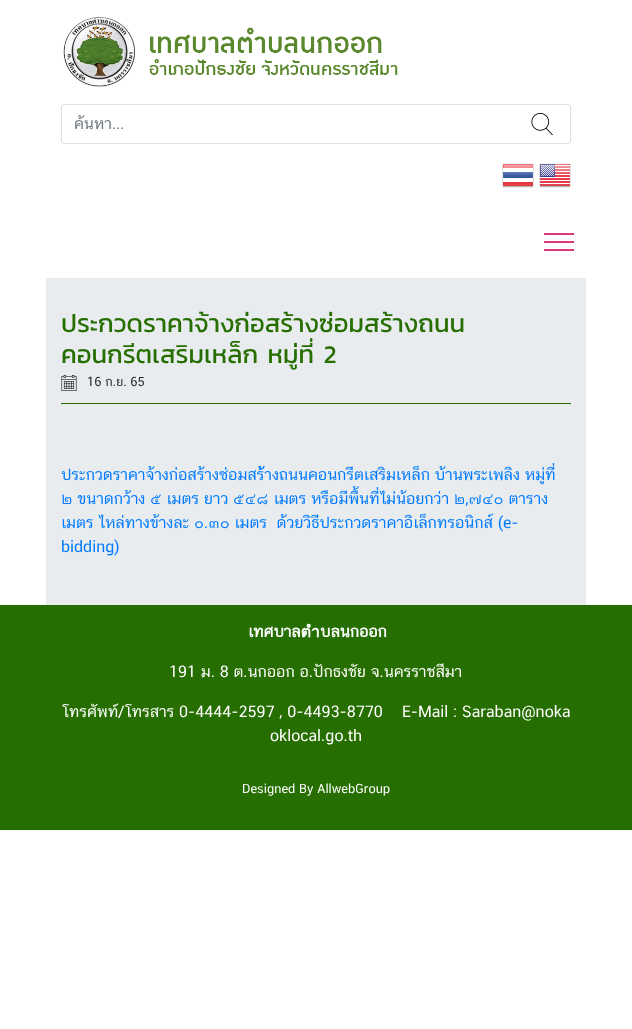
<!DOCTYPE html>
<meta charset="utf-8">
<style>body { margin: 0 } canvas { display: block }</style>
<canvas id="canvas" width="632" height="1029"></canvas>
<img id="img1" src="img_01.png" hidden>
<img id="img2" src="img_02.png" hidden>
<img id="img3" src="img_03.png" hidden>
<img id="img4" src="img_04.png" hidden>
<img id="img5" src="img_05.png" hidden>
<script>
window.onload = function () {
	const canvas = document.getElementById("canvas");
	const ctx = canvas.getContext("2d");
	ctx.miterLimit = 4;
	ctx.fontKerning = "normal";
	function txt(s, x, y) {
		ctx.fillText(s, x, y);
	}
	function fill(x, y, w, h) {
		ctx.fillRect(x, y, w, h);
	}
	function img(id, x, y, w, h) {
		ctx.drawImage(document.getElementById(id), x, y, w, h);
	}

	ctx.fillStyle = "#FFFFFF";
	fill(0, 0, 632, 1029);
	img("img1", 63, 17, 335, 70);
	ctx.beginPath();
	ctx.roundRect(61.5, 104.5, 509, 39, 2.5);
	ctx.strokeStyle = "#DEE2E6";
	ctx.stroke();
	img("img2", 531, 113, 22, 22);
	img("img3", 502, 163, 32, 25);
	img("img4", 539, 163, 32, 25);
	ctx.fillStyle = "#D93B7B";
	fill(544, 233, 30, 2);
	fill(544, 241, 30, 2);
	fill(544, 249, 30, 2);
	ctx.fillStyle = "#E9ECEF";
	fill(46, 278, 540, 327);
	ctx.fillStyle = "#266E00";
	fill(61, 403, 510, 1);
	img("img5", 61, 375, 16, 16);
	fill(0, 605, 632, 225);
	ctx.save();
	ctx.beginPath();
	ctx.rect(74, 114, 424, 20);
	ctx.clip();
	ctx.font = "16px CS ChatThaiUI";
	ctx.fillStyle = "#6C757D";
	txt("ค้นหา...", 74, 129);
	ctx.restore();
	ctx.font = "25.6px Kanit";
	txt("ประกวดราคาจ้างก่อสร้างซ่อมสร้างถนน", 61, 332);
	txt("คอนกรีตเสริมเหล็ก หมู่ที่ 2", 61, 363);
	ctx.font = "12.75px CS ChatThaiUI";
	ctx.fillStyle = "#212529";
	txt("16 ก.ย. 65", 87, 386);
	ctx.font = "16px CS ChatThaiUI";
	ctx.fillStyle = "#007BFF";
	txt("ประกวดราคาจ้างก่อสร้างซ่อมสร้้างถนนคอนกรีตเสริมเหล็ก บ้านพระเพลิง หมู่ที่", 61, 480);
	txt("๒ ขนาดกว้าง ๕ เมตร ยาว ๕๔๘ เมตร หรือมีพื้นที่ไม่น้อยกว่า ๒,๗๔๐ ตาราง", 61, 504);
	txt("เมตร ไหล่ทางข้างละ ๐.๓๐ เมตร  ด้วยวิธีประกวดราคาอิเล็กทรอนิกส์ (e-", 61, 528);
	txt("bidding)", 61, 552);
	ctx.font = "bold 16px CS ChatThaiUI";
	ctx.fillStyle = "#FFFFFF";
	txt("เทศบาลตำบลนกออก", 248, 637);
	ctx.font = "16px CS ChatThaiUI";
	txt("191 ม. 8 ต.นกออก อ.ปักธงชัย จ.นครราชสีมา", 169, 677);
	txt("โทรศัพท์/โทรสาร 0-4444-2597 , 0-4493-8770    E-Mail : Saraban@noka", 62, 717);
	txt("oklocal.go.th", 270, 741);
	ctx.font = "12.75px CS ChatThaiUI";
	txt("Designed By AllwebGroup", 242, 793);
};
</script>
